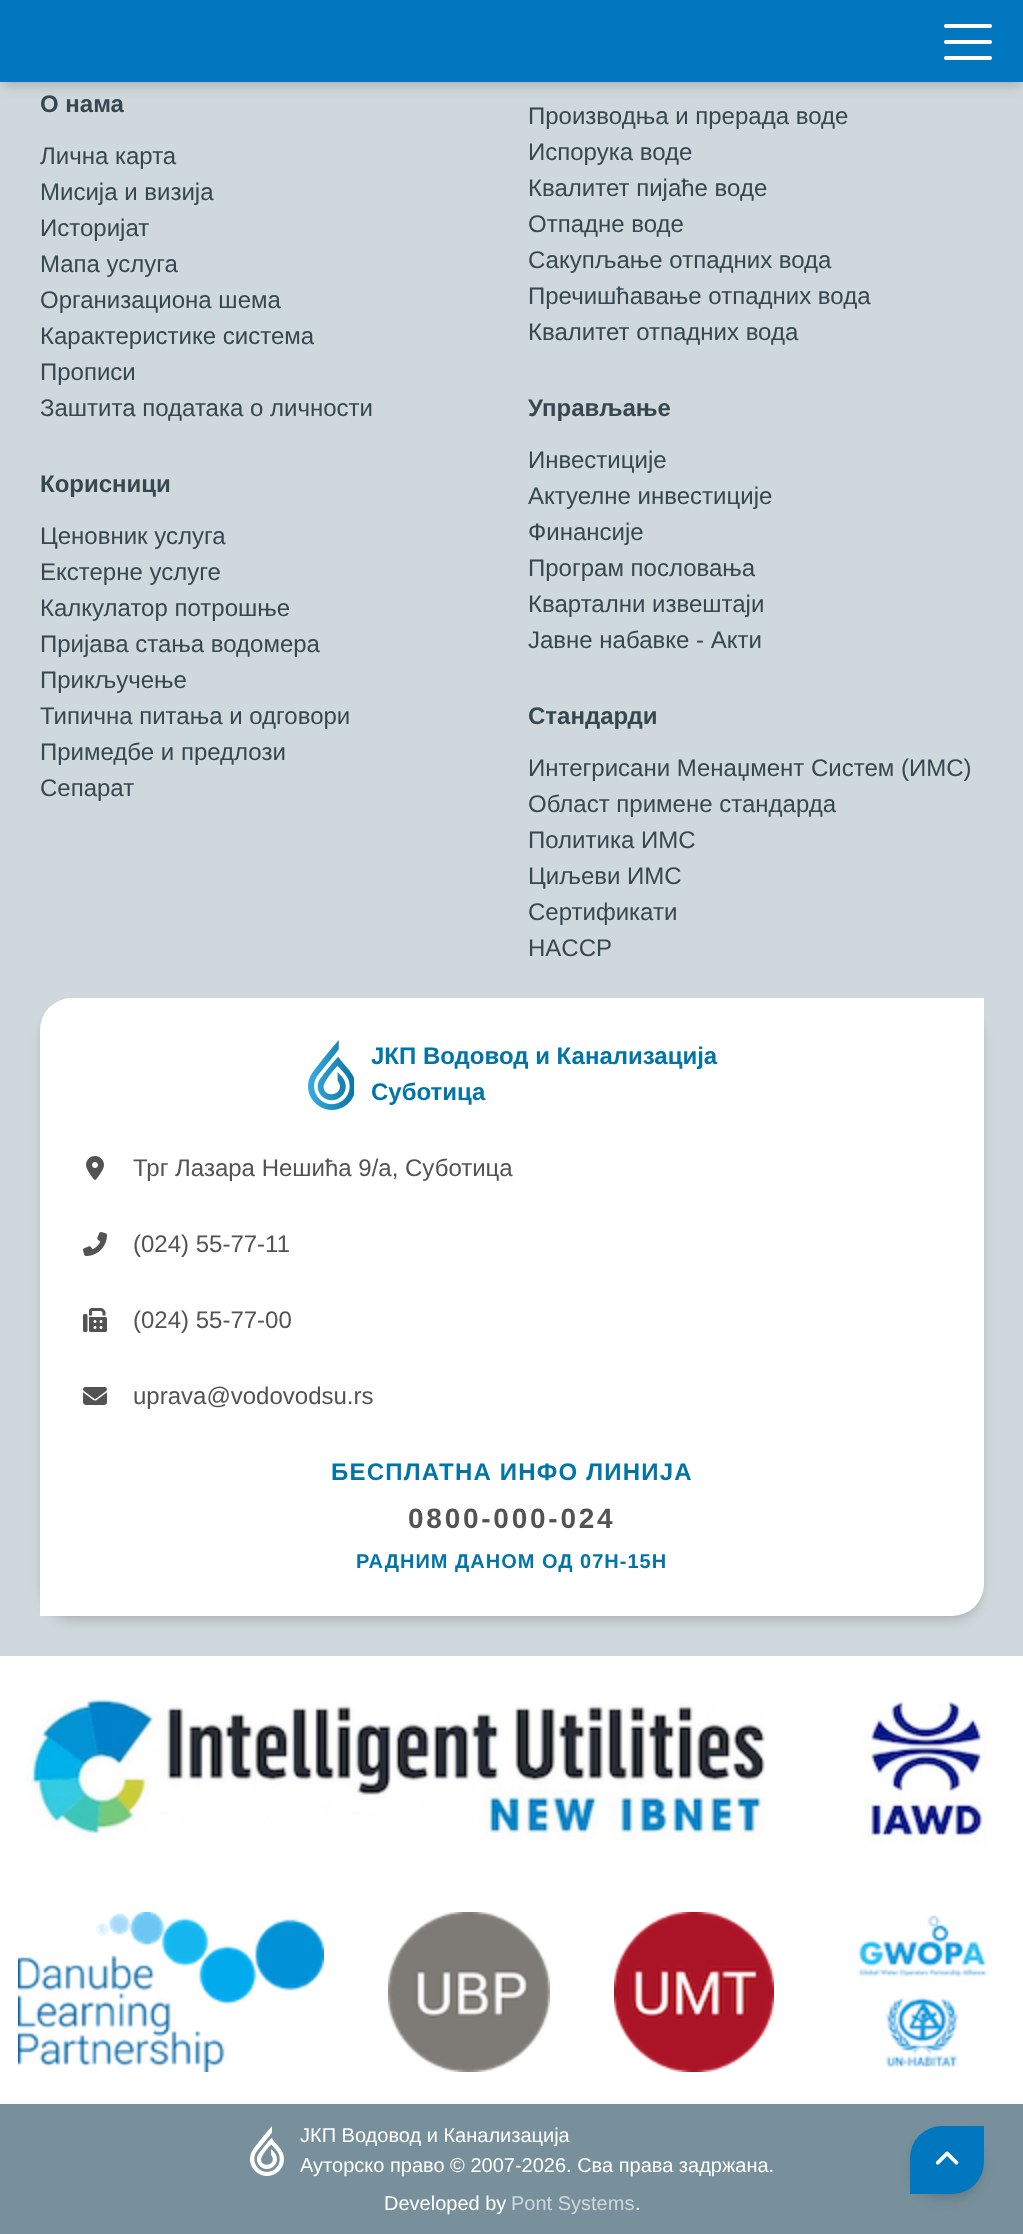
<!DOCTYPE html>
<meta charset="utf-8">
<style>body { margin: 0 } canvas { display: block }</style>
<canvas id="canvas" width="1023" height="2234"></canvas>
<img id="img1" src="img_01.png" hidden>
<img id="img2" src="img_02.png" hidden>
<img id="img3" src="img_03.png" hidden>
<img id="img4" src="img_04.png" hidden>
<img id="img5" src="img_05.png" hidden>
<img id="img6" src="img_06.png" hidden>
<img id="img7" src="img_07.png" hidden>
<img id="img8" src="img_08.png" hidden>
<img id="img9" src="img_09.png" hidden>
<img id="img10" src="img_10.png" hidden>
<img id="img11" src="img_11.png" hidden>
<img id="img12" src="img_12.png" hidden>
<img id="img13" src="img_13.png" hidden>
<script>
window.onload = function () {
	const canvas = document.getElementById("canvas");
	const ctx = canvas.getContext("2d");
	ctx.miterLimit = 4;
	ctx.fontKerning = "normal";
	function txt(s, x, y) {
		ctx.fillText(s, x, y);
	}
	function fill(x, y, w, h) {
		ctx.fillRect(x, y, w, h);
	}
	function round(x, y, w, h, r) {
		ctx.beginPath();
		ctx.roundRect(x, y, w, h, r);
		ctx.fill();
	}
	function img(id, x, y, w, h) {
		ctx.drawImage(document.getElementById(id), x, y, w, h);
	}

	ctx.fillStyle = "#CFD8DC";
	fill(0, 0, 1023, 2234);
	ctx.fillStyle = "rgba(0, 0, 0, 0.1)";
	ctx.filter = "blur(4px)";
	ctx.beginPath();
	ctx.rect(4, 8, 1016, 74);
	ctx.fill();
	ctx.filter = "none";
	ctx.filter = "blur(6px)";
	ctx.beginPath();
	ctx.rect(2, 10, 1020, 78);
	ctx.fill();
	ctx.filter = "none";
	ctx.fillStyle = "#0077BE";
	fill(0, 0, 1023, 82);
	ctx.fillStyle = "#FFFFFF";
	round(944, 24, 48, 4, 2);
	round(944, 40, 48, 4, 2);
	round(944, 56, 48, 4, 2);
	ctx.fillStyle = "rgba(0, 0, 0, 0.1)";
	ctx.filter = "blur(4px)";
	ctx.beginPath();
	ctx.roundRect(44, 1006, 936, 610, 28);
	ctx.fill();
	ctx.filter = "none";
	ctx.filter = "blur(6px)";
	ctx.beginPath();
	ctx.roundRect(42, 1008, 940, 614, 30);
	ctx.fill();
	ctx.filter = "none";
	ctx.fillStyle = "#FFFFFF";
	ctx.beginPath();
	ctx.roundRect(40, 998, 944, 618, [32, 0, 32, 0]);
	ctx.fill();
	img("img1", 308, 1040, 46, 70);
	img("img2", 86, 1156, 18, 24);
	img("img3", 83, 1232, 24, 24);
	img("img4", 83, 1308, 24, 24);
	img("img5", 83, 1387, 24, 18);
	fill(0, 1656, 1023, 448);
	img("img6", 26, 1698, 739, 143);
	img("img7", 860, 1701, 127, 147);
	img("img8", 18, 1912, 306, 160);
	img("img9", 388, 1912, 162, 160);
	img("img10", 614, 1912, 160, 160);
	img("img11", 857, 1915, 130, 153);
	ctx.fillStyle = "#78909C";
	fill(0, 2104, 1023, 130);
	img("img12", 250, 2126, 34, 50);
	ctx.fillStyle = "rgba(0, 0, 0, 0.1)";
	ctx.filter = "blur(4px)";
	ctx.beginPath();
	ctx.roundRect(914, 2134, 66, 60, 28);
	ctx.fill();
	ctx.filter = "none";
	ctx.filter = "blur(6px)";
	ctx.beginPath();
	ctx.roundRect(912, 2136, 70, 64, 30);
	ctx.fill();
	ctx.filter = "none";
	ctx.fillStyle = "#0077BE";
	ctx.beginPath();
	ctx.roundRect(910, 2126, 74, 68, [32, 0, 32, 0]);
	ctx.fill();
	img("img13", 935, 2151, 24, 14);
	ctx.font = "bold 24px Liberation Sans";
	ctx.fillStyle = "#37474F";
	txt("О нама", 40, 112);
	ctx.font = "24px Liberation Sans";
	txt("Лична карта", 40, 164);
	txt("Мисија и визија", 40, 200);
	txt("Историјат", 40, 236);
	txt("Мапа услуга", 40, 272);
	txt("Организациона шема", 40, 308);
	txt("Карактеристике система", 40, 344);
	txt("Прописи", 40, 380);
	txt("Заштита података о личности", 40, 416);
	txt("Производња и прерада воде", 528, 124);
	txt("Испорука воде", 528, 160);
	txt("Квалитет пијаће воде", 528, 196);
	txt("Отпадне воде", 528, 232);
	txt("Сакупљање отпадних вода", 528, 268);
	txt("Пречишћавање отпадних вода", 528, 304);
	txt("Квалитет отпадних вода", 528, 340);
	ctx.font = "bold 24px Liberation Sans";
	txt("Корисници", 40, 492);
	ctx.font = "24px Liberation Sans";
	txt("Ценовник услуга", 40, 544);
	txt("Екстерне услуге", 40, 580);
	txt("Калкулатор потрошње", 40, 616);
	txt("Пријава стања водомера", 40, 652);
	txt("Прикључење", 40, 688);
	txt("Типична питања и одговори", 40, 724);
	txt("Примедбе и предлози", 40, 760);
	txt("Сепарат", 40, 796);
	ctx.font = "bold 24px Liberation Sans";
	txt("Управљање", 528, 416);
	ctx.font = "24px Liberation Sans";
	txt("Инвестиције", 528, 468);
	txt("Актуелне инвестиције", 528, 504);
	txt("Финансије", 528, 540);
	txt("Програм пословања", 528, 576);
	txt("Квартални извештаји", 528, 612);
	txt("Јавне набавке - Акти", 528, 648);
	ctx.font = "bold 24px Liberation Sans";
	txt("Стандарди", 528, 724);
	ctx.font = "24px Liberation Sans";
	txt("Интегрисани Менаџмент Систем (ИМС)", 528, 776);
	txt("Област примене стандарда", 528, 812);
	txt("Политика ИМС", 528, 848);
	txt("Циљеви ИМС", 528, 884);
	txt("Сертификати", 528, 920);
	txt("HACCP", 528, 956);
	ctx.font = "bold 24px Liberation Sans";
	ctx.fillStyle = "#0174A8";
	txt("ЈКП Водовод и Канализација", 371, 1064);
	txt("Суботица", 371, 1100);
	ctx.font = "24px Liberation Sans";
	ctx.fillStyle = "#535353";
	txt("Трг Лазара Нешића 9/а, Суботица", 133, 1176);
	txt("(024) 55-77-11", 133, 1252);
	txt("(024) 55-77-00", 133, 1328);
	txt("uprava@vodovodsu.rs", 133, 1404);
	ctx.letterSpacing = "1.2px";
	ctx.font = "bold 24px Liberation Sans";
	ctx.fillStyle = "#0174A8";
	txt("БЕСПЛАТНА ИНФО ЛИНИЈА", 331, 1480);
	ctx.letterSpacing = "2.75px";
	ctx.font = "bold 28px Liberation Sans";
	ctx.fillStyle = "#535353";
	txt("0800-000-024", 408, 1528);
	ctx.letterSpacing = "1px";
	ctx.font = "bold 20px Liberation Sans";
	ctx.fillStyle = "#0174A8";
	txt("РАДНИМ ДАНОМ ОД 07H-15H", 356, 1568);
	ctx.letterSpacing = "0px";
	ctx.font = "20px Liberation Sans";
	ctx.fillStyle = "#FFFFFF";
	txt("ЈКП Водовод и Канализација", 300, 2142);
	txt("Ауторско право © 2007-2026. Сва права задржана.", 300, 2172);
	txt("Developed by", 384, 2210);
	ctx.fillStyle = "#CFD8DC";
	txt("Pont Systems", 511, 2210);
	ctx.fillStyle = "#FFFFFF";
	txt(".", 635, 2210);
};
</script>
